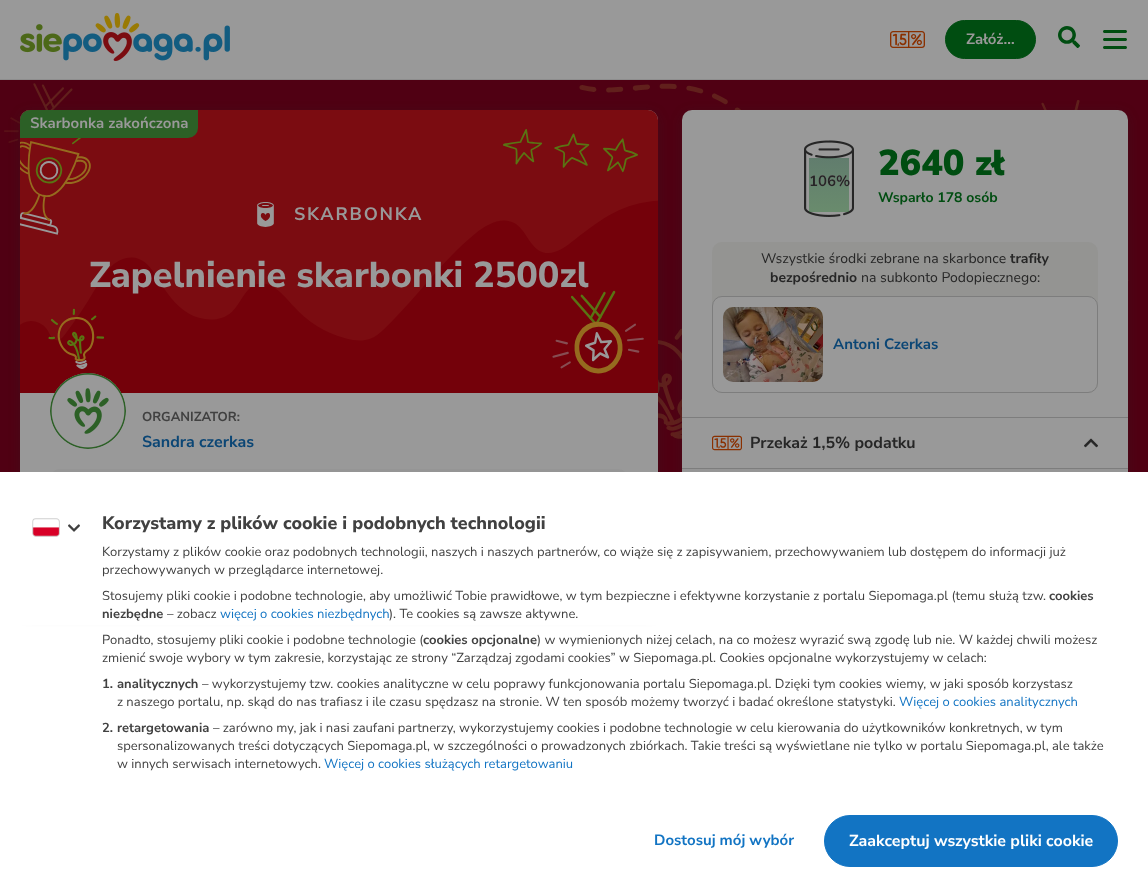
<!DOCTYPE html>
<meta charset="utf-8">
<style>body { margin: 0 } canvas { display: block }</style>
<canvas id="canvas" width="1148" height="887"></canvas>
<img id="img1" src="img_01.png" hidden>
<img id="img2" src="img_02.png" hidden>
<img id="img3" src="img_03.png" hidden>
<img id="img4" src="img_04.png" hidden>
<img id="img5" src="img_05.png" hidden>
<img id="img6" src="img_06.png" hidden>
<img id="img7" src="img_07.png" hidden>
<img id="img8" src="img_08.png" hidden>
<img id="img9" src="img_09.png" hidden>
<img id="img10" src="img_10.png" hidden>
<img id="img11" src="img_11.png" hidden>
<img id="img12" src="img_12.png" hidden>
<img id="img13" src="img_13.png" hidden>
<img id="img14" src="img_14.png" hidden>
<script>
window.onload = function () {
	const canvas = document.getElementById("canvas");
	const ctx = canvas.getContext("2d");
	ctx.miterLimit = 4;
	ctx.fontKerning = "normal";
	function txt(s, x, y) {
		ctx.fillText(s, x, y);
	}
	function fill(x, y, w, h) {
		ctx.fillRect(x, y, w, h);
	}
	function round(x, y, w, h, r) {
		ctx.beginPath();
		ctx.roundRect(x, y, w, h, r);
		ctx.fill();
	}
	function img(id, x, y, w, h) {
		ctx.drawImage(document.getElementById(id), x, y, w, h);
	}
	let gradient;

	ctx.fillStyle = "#FFFFFF";
	fill(0, 0, 1148, 887);
	ctx.fillStyle = "#999999";
	fill(0, 0, 1148, 79);
	ctx.fillStyle = "#8D8D8D";
	fill(0, 79, 1148, 1);
	img("img1", 20, 13, 210, 48);
	img("img2", 890, 31, 35, 17);
	ctx.fillStyle = "#004D11";
	ctx.beginPath();
	ctx.roundRect(945.5, 20.5, 90, 38, 19);
	ctx.fill();
	ctx.strokeStyle = "#004D11";
	ctx.stroke();
	img("img3", 1058, 26, 22, 22);
	img("img4", 1103, 30, 24, 19);
	ctx.fillStyle = "#500013";
	ctx.beginPath();
	ctx.moveTo(0, 80);
	ctx.lineTo(1148, 80);
	ctx.lineTo(1148, 536);
	ctx.bezierCurveTo(769, 600, 379, 600, 0, 536);
	ctx.closePath();
	ctx.fill();
	img("img5", 4, 83, 1125, 356);
	ctx.fillStyle = "rgba(38, 38, 38, 0.26)";
	ctx.filter = "blur(6px)";
	ctx.beginPath();
	ctx.roundRect(20, 113, 638, 502, 10);
	ctx.fill();
	ctx.filter = "none";
	ctx.fillStyle = "#999999";
	round(20, 110, 638, 502, 10);
	img("img6", 20, 110, 638, 283);
	ctx.fillStyle = "#2C6026";
	ctx.beginPath();
	ctx.roundRect(20, 110, 178, 28, [10, 0, 10, 0]);
	ctx.fill();
	img("img7", 257, 202, 17, 25);
	ctx.fillStyle = "#999999";
	ctx.beginPath();
	ctx.arc(88, 411, 38, 0, Math.PI * 2);
	ctx.fill();
	img("img8", 50, 373, 76, 76);
	ctx.fillStyle = "#959595";
	round(50, 469, 578, 35, 10);
	ctx.fillStyle = "rgba(38, 38, 38, 0.26)";
	ctx.filter = "blur(6px)";
	ctx.beginPath();
	ctx.roundRect(682, 113, 446, 472, 10);
	ctx.fill();
	ctx.filter = "none";
	ctx.fillStyle = "#999999";
	round(682, 110, 446, 472, 10);
	img("img9", 804, 140, 50, 77);
	gradient = ctx.createLinearGradient(829, 158, 829, 212);
	gradient.addColorStop(0, "rgba(13, 82, 44, 0.4)");
	gradient.addColorStop(1, "rgba(34, 119, 43, 0.4)");
	ctx.fillStyle = gradient;
	fill(809, 158, 40, 54);
	ctx.fillStyle = "#949492";
	round(712, 242, 386, 151, 10);
	ctx.fillStyle = "#999999";
	ctx.beginPath();
	ctx.roundRect(712.5, 296.5, 385, 96, 9.5);
	ctx.fill();
	ctx.strokeStyle = "#7D7D7D";
	ctx.stroke();
	img("img10", 723, 307, 100, 75);
	ctx.fillStyle = "#959595";
	fill(682, 469, 446, 3);
	ctx.fillStyle = "#7D7D7D";
	fill(682, 417, 446, 1);
	img("img11", 712, 435, 30, 16);
	img("img12", 1084, 438, 14, 10);
	fill(682, 468, 446, 1);
	ctx.fillStyle = "#FFFFFF";
	fill(0, 472, 1148, 153);
	img("img13", 32, 518, 28, 19);
	img("img14", 68, 524, 12, 8);
	ctx.fillStyle = "#1274C3";
	ctx.beginPath();
	ctx.roundRect(824.5, 815.5, 293, 51, 25.5);
	ctx.fill();
	ctx.strokeStyle = "#1274C3";
	ctx.stroke();
	ctx.font = "bold 15px Nunito Sans";
	ctx.fillStyle = "#999999";
	txt("Załóż…", 966, 44);
	txt("Skarbonka zakończona", 30, 128);
	ctx.letterSpacing = "1.75px";
	ctx.font = "bold 18px Nunito Sans";
	txt("SKARBONKA", 294, 220);
	ctx.letterSpacing = "0px";
	ctx.font = "800 36px Nunito Sans";
	txt("Zapelnienie skarbonki 2500zl", 89, 287);
	ctx.font = "bold 13px Nunito Sans";
	ctx.fillStyle = "#414141";
	txt("ORGANIZATOR:", 142, 421);
	ctx.font = "bold 16px Nunito Sans";
	ctx.fillStyle = "#0B4675";
	txt("Sandra czerkas", 142, 447);
	ctx.font = "bold 15px Nunito Sans";
	ctx.fillStyle = "#999999";
	txt("106%", 809, 186);
	ctx.fillStyle = "#262626";
	txt("106%", 809, 186);
	ctx.font = "900 36px Nunito Sans";
	ctx.fillStyle = "#004D11";
	txt("2640 zł", 878, 175);
	ctx.font = "bold 14px Nunito Sans";
	txt("Wsparło 178 osób", 878, 202);
	ctx.font = "14px Nunito Sans";
	ctx.fillStyle = "#262626";
	txt("Wszystkie środki zebrane na skarbonce", 761, 263);
	ctx.font = "bold 14px Nunito Sans";
	txt("trafiły", 1010, 263);
	txt("bezpośrednio", 770, 282);
	ctx.font = "14px Nunito Sans";
	txt("na subkonto Podopiecznego:", 861, 282);
	ctx.font = "bold 15px Nunito Sans";
	ctx.fillStyle = "#0B4675";
	txt("Antoni Czerkas", 833, 349);
	ctx.font = "bold 16px Nunito Sans";
	ctx.fillStyle = "#262626";
	txt("Przekaż 1,5% podatku", 750, 448);
	ctx.font = "800 18px Nunito Sans";
	ctx.fillStyle = "#414141";
	txt("Korzystamy z plików cookie i podobnych technologii", 102, 529);
	ctx.font = "13px Nunito Sans";
	txt("Korzystamy z plików cookie oraz podobnych technologii, naszych i naszych partnerów, co wiąże się z zapisywaniem, przechowywaniem lub dostępem do informacji już", 102, 556);
	txt("przechowywanych w przeglądarce internetowej.", 102, 574);
	txt("Stosujemy pliki cookie i podobne technologie, aby umożliwić Tobie prawidłowe, w tym bezpieczne i efektywne korzystanie z portalu Siepomaga.pl (temu służą tzw.", 102, 600);
	ctx.font = "bold 13px Nunito Sans";
	txt("cookies", 1049, 600);
	txt("niezbędne", 102, 618);
	ctx.font = "13px Nunito Sans";
	txt("– zobacz", 167, 618);
	ctx.fillStyle = "#1274C3";
	txt("więcej o cookies niezbędnych", 220, 618);
	ctx.fillStyle = "#414141";
	txt("). Te cookies są zawsze aktywne.", 389, 618);
	txt("Ponadto, stosujemy pliki cookie i podobne technologie (", 102, 644);
	ctx.font = "bold 13px Nunito Sans";
	txt("cookies opcjonalne", 423, 644);
	ctx.font = "13px Nunito Sans";
	txt(") w wymienionych niżej celach, na co możesz wyrazić swą zgodę lub nie. W każdej chwili możesz", 537, 644);
	txt("zmienić swoje wybory w tym zakresie, korzystając ze strony “Zarządzaj zgodami cookies” w Siepomaga.pl. Cookies opcjonalne wykorzystujemy w celach:", 102, 662);
	ctx.font = "bold 13px Nunito Sans";
	txt("1.", 102, 688);
	txt("analitycznych", 117, 688);
	ctx.font = "13px Nunito Sans";
	txt("– wykorzystujemy tzw. cookies analityczne w celu poprawy funkcjonowania portalu Siepomaga.pl. Dzięki tym cookies wiemy, w jaki sposób korzystasz", 202, 688);
	txt("z naszego portalu, np. skąd do nas trafiasz i ile czasu spędzasz na stronie. W ten sposób możemy tworzyć i badać określone statystyki.", 117, 706);
	ctx.fillStyle = "#1274C3";
	txt("Więcej o cookies analitycznych", 899, 706);
	ctx.font = "bold 13px Nunito Sans";
	ctx.fillStyle = "#414141";
	txt("2.", 102, 732);
	txt("retargetowania", 117, 732);
	ctx.font = "13px Nunito Sans";
	txt("– zarówno my, jak i nasi zaufani partnerzy, wykorzystujemy cookies i podobne technologie w celu kierowania do użytkowników konkretnych, w tym", 213, 732);
	txt("spersonalizowanych treści dotyczących Siepomaga.pl, w szczególności o prowadzonych zbiórkach. Takie treści są wyświetlane nie tylko w portalu Siepomaga.pl, ale także", 117, 750);
	txt("w innych serwisach internetowych.", 117, 768);
	ctx.fillStyle = "#1274C3";
	txt("Więcej o cookies służących retargetowaniu", 324, 768);
	ctx.font = "bold 15px Nunito Sans";
	txt("Dostosuj mój wybór", 654, 845);
	ctx.font = "bold 16px Nunito Sans";
	ctx.fillStyle = "#FFFFFF";
	txt("Zaakceptuj wszystkie pliki cookie", 849, 846);
};
</script>
